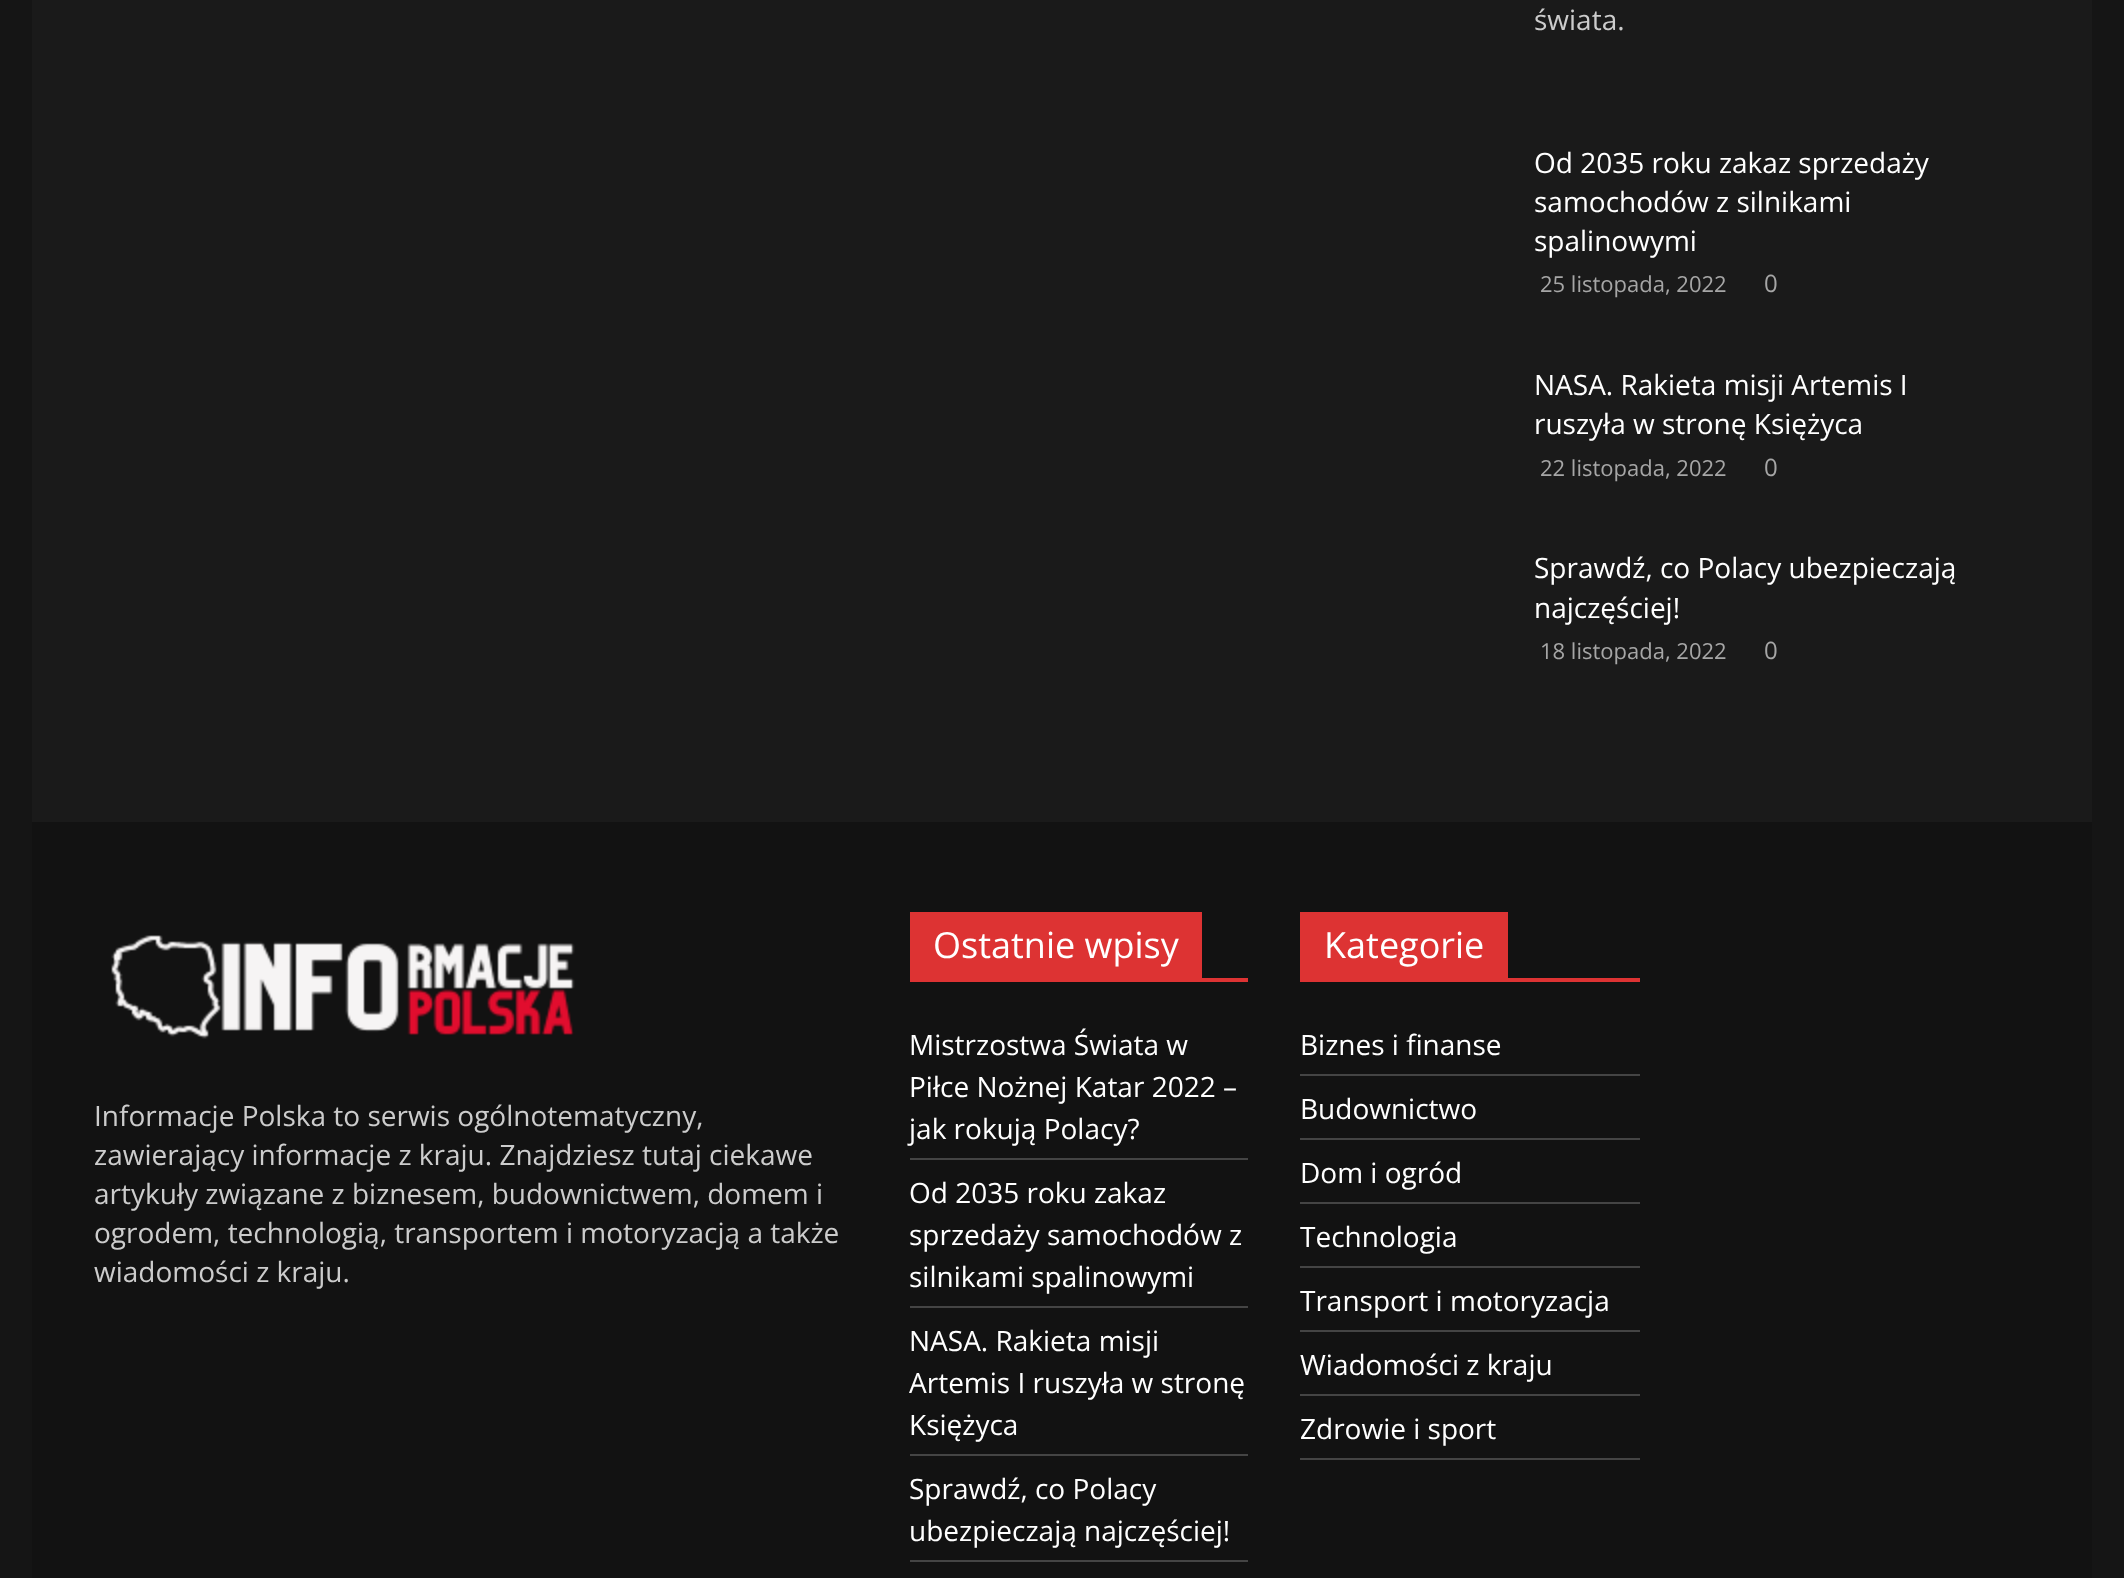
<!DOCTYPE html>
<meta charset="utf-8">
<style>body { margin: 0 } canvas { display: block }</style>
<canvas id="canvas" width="2124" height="1578"></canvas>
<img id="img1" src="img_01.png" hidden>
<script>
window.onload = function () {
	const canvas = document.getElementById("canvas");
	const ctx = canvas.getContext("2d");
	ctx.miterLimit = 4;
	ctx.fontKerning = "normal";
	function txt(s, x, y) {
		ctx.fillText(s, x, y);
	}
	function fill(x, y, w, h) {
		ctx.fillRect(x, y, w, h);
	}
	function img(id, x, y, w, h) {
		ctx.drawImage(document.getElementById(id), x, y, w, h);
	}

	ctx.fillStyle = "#151515";
	fill(0, 0, 2124, 1578);
	ctx.fillStyle = "#1A1A1A";
	fill(32, 0, 2060, 822);
	ctx.fillStyle = "#121212";
	fill(32, 822, 2060, 756);
	img("img1", 111, 935, 464, 104);
	ctx.fillStyle = "#DD3333";
	fill(910, 978, 338, 4);
	fill(910, 912, 292, 66);
	ctx.fillStyle = "#444444";
	fill(910, 1158, 338, 2);
	fill(910, 1306, 338, 2);
	fill(910, 1454, 338, 2);
	fill(910, 1560, 338, 2);
	ctx.fillStyle = "#DD3333";
	fill(1300, 978, 340, 4);
	fill(1300, 912, 208, 66);
	ctx.fillStyle = "#444444";
	fill(1300, 1074, 340, 2);
	fill(1300, 1138, 340, 2);
	fill(1300, 1202, 340, 2);
	fill(1300, 1266, 340, 2);
	fill(1300, 1330, 340, 2);
	fill(1300, 1394, 340, 2);
	fill(1300, 1458, 340, 2);
	ctx.font = "28px Open Sans";
	ctx.fillStyle = "#CCCCCC";
	txt("świata.", 1534, 30);
	ctx.fillStyle = "#FFFFFF";
	txt("Od 2035 roku zakaz sprzedaży", 1534, 173);
	txt("samochodów z silnikami", 1534, 212);
	txt("spalinowymi", 1534, 251);
	ctx.font = "22px Open Sans";
	ctx.fillStyle = "#A6A6A6";
	txt("25 listopada, 2022", 1540, 292);
	ctx.font = "24px Open Sans";
	txt("0", 1764, 292);
	ctx.font = "28px Open Sans";
	ctx.fillStyle = "#FFFFFF";
	txt("NASA. Rakieta misji Artemis I", 1534, 395);
	txt("ruszyła w stronę Księżyca", 1534, 434);
	ctx.font = "22px Open Sans";
	ctx.fillStyle = "#A6A6A6";
	txt("22 listopada, 2022", 1540, 476);
	ctx.font = "24px Open Sans";
	txt("0", 1764, 476);
	ctx.font = "28px Open Sans";
	ctx.fillStyle = "#FFFFFF";
	txt("Sprawdź, co Polacy ubezpieczają", 1534, 578);
	txt("najczęściej!", 1534, 618);
	ctx.font = "22px Open Sans";
	ctx.fillStyle = "#A6A6A6";
	txt("18 listopada, 2022", 1540, 659);
	ctx.font = "24px Open Sans";
	txt("0", 1764, 659);
	ctx.font = "28px Open Sans";
	ctx.fillStyle = "#CCCCCC";
	txt("Informacje Polska to serwis ogólnotematyczny,", 94, 1126);
	txt("zawierający informacje z kraju. Znajdziesz tutaj ciekawe", 94, 1165);
	txt("artykuły związane z biznesem, budownictwem, domem i", 94, 1204);
	txt("ogrodem, technologią, transportem i motoryzacją a także", 94, 1243);
	txt("wiadomości z kraju.", 94, 1282);
	ctx.font = "36px Open Sans";
	ctx.fillStyle = "#FFFFFF";
	txt("Ostatnie wpisy", 933, 958);
	ctx.font = "28px Open Sans";
	txt("Mistrzostwa Świata w", 909, 1055);
	txt("Piłce Nożnej Katar 2022 –", 909, 1097);
	txt("jak rokują Polacy?", 909, 1139);
	txt("Od 2035 roku zakaz", 909, 1203);
	txt("sprzedaży samochodów z", 909, 1245);
	txt("silnikami spalinowymi", 909, 1287);
	txt("NASA. Rakieta misji", 909, 1351);
	txt("Artemis I ruszyła w stronę", 909, 1393);
	txt("Księżyca", 909, 1435);
	txt("Sprawdź, co Polacy", 909, 1499);
	txt("ubezpieczają najczęściej!", 909, 1541);
	ctx.font = "36px Open Sans";
	txt("Kategorie", 1324, 958);
	ctx.font = "28px Open Sans";
	txt("Biznes i finanse", 1300, 1055);
	txt("Budownictwo", 1300, 1119);
	txt("Dom i ogród", 1300, 1183);
	txt("Technologia", 1300, 1247);
	txt("Transport i motoryzacja", 1300, 1311);
	txt("Wiadomości z kraju", 1300, 1375);
	txt("Zdrowie i sport", 1300, 1439);
};
</script>
